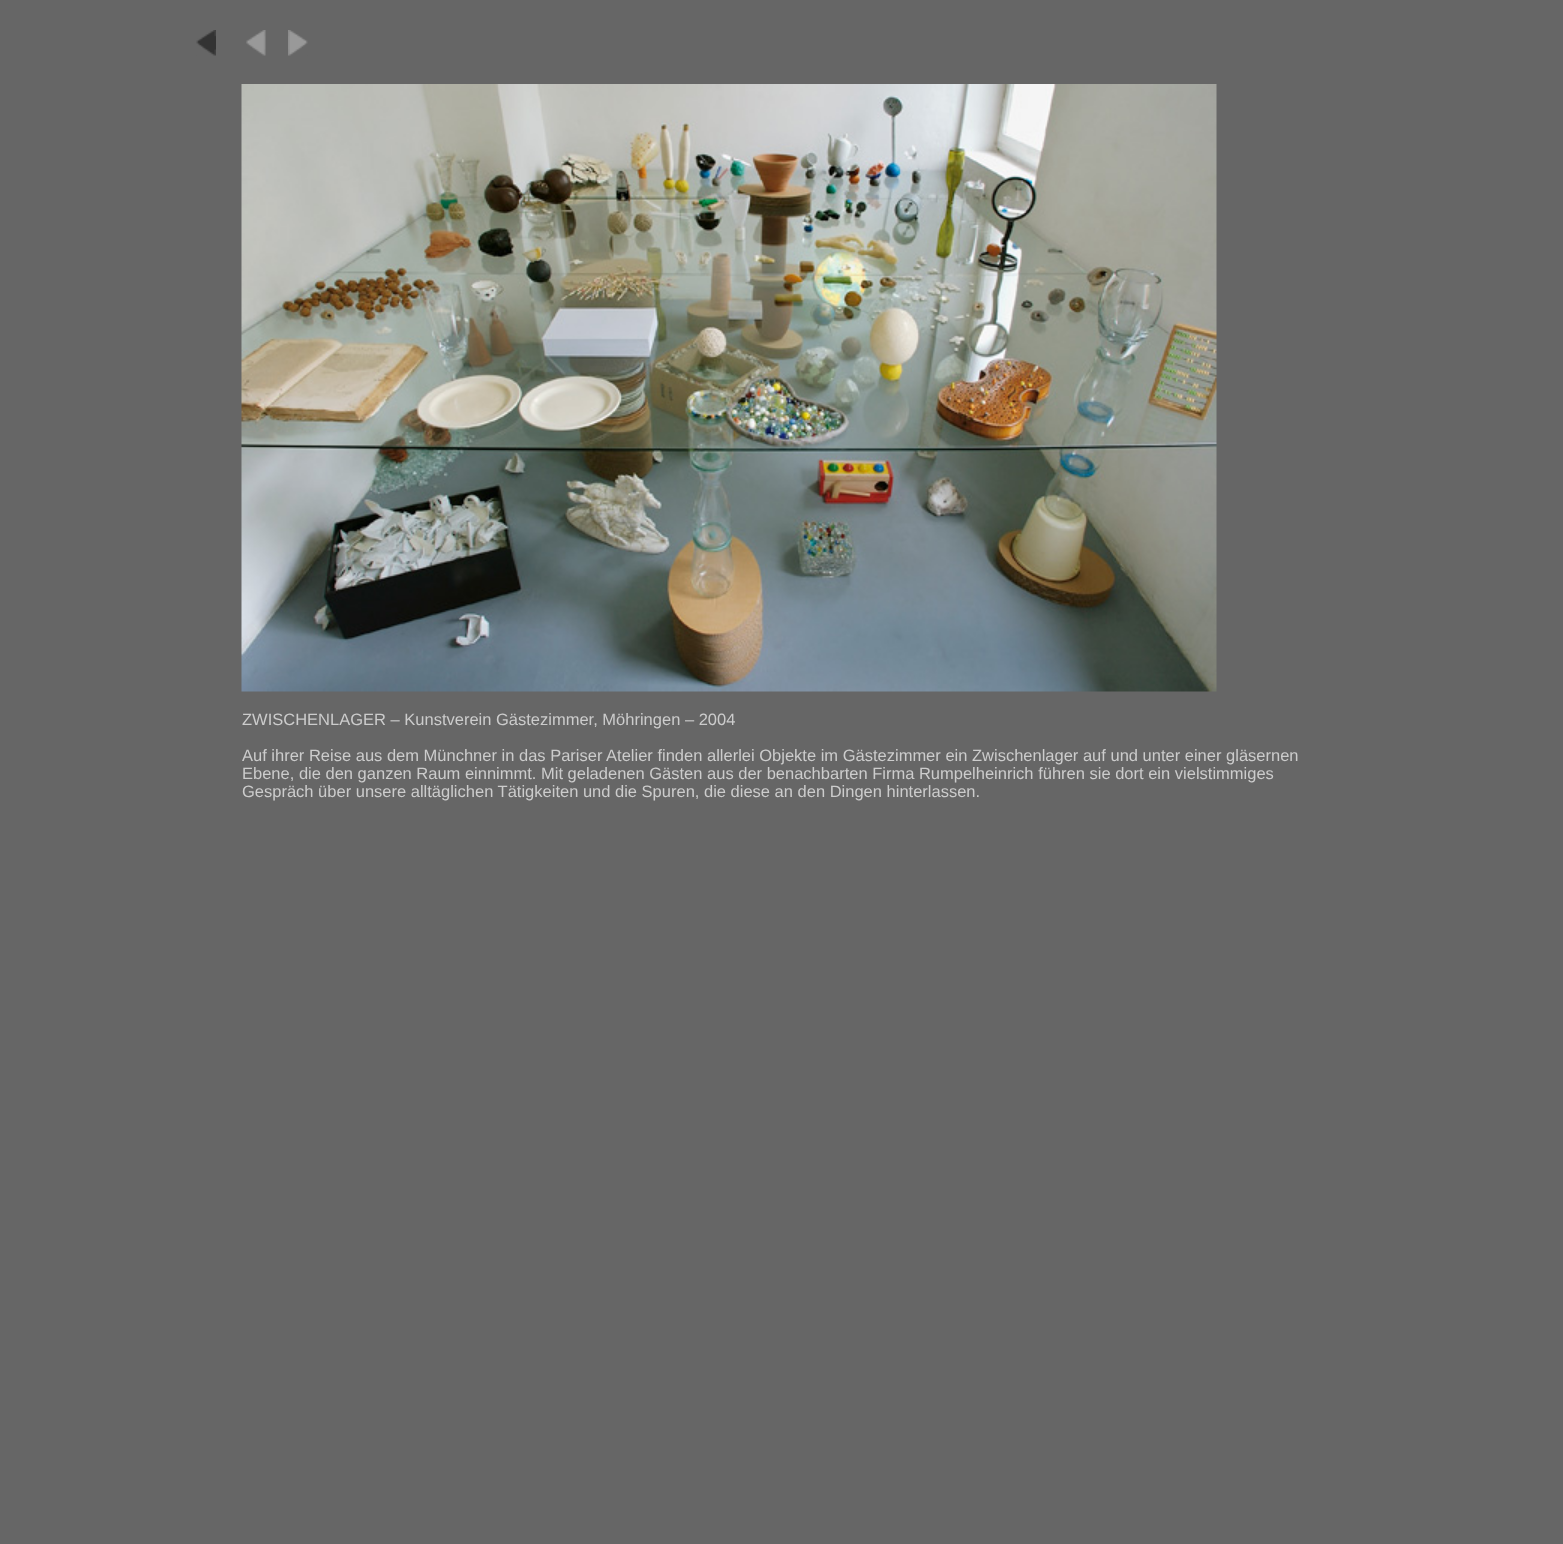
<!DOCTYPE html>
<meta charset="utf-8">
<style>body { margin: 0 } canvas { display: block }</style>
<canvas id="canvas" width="1563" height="1544"></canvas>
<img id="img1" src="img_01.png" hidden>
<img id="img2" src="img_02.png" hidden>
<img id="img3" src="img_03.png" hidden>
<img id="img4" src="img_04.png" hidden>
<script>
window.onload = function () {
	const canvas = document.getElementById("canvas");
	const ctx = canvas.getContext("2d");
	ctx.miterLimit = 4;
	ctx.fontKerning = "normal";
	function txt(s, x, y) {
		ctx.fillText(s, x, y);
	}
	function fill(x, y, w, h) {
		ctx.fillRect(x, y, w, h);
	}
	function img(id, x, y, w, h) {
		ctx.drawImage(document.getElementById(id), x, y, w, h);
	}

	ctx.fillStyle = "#666666";
	fill(0, 0, 1563, 1544);
	img("img1", 196, 30, 20, 26);
	img("img2", 246, 30, 20, 26);
	img("img3", 288, 30, 20, 26);
	img("img4", 241, 84, 976, 608);
	ctx.font = "16.5px Liberation Sans";
	ctx.fillStyle = "#CCCCCC";
	txt("ZWISCHENLAGER – Kunstverein Gästezimmer, Möhringen – 2004", 242, 725);
	txt("Auf ihrer Reise aus dem Münchner in das Pariser Atelier finden allerlei Objekte im Gästezimmer ein Zwischenlager auf und unter einer gläsernen", 242, 761);
	txt("Ebene, die den ganzen Raum einnimmt. Mit geladenen Gästen aus der benachbarten Firma Rumpelheinrich führen sie dort ein vielstimmiges", 242, 779);
	txt("Gespräch über unsere alltäglichen Tätigkeiten und die Spuren, die diese an den Dingen hinterlassen.", 242, 797);
};
</script>
